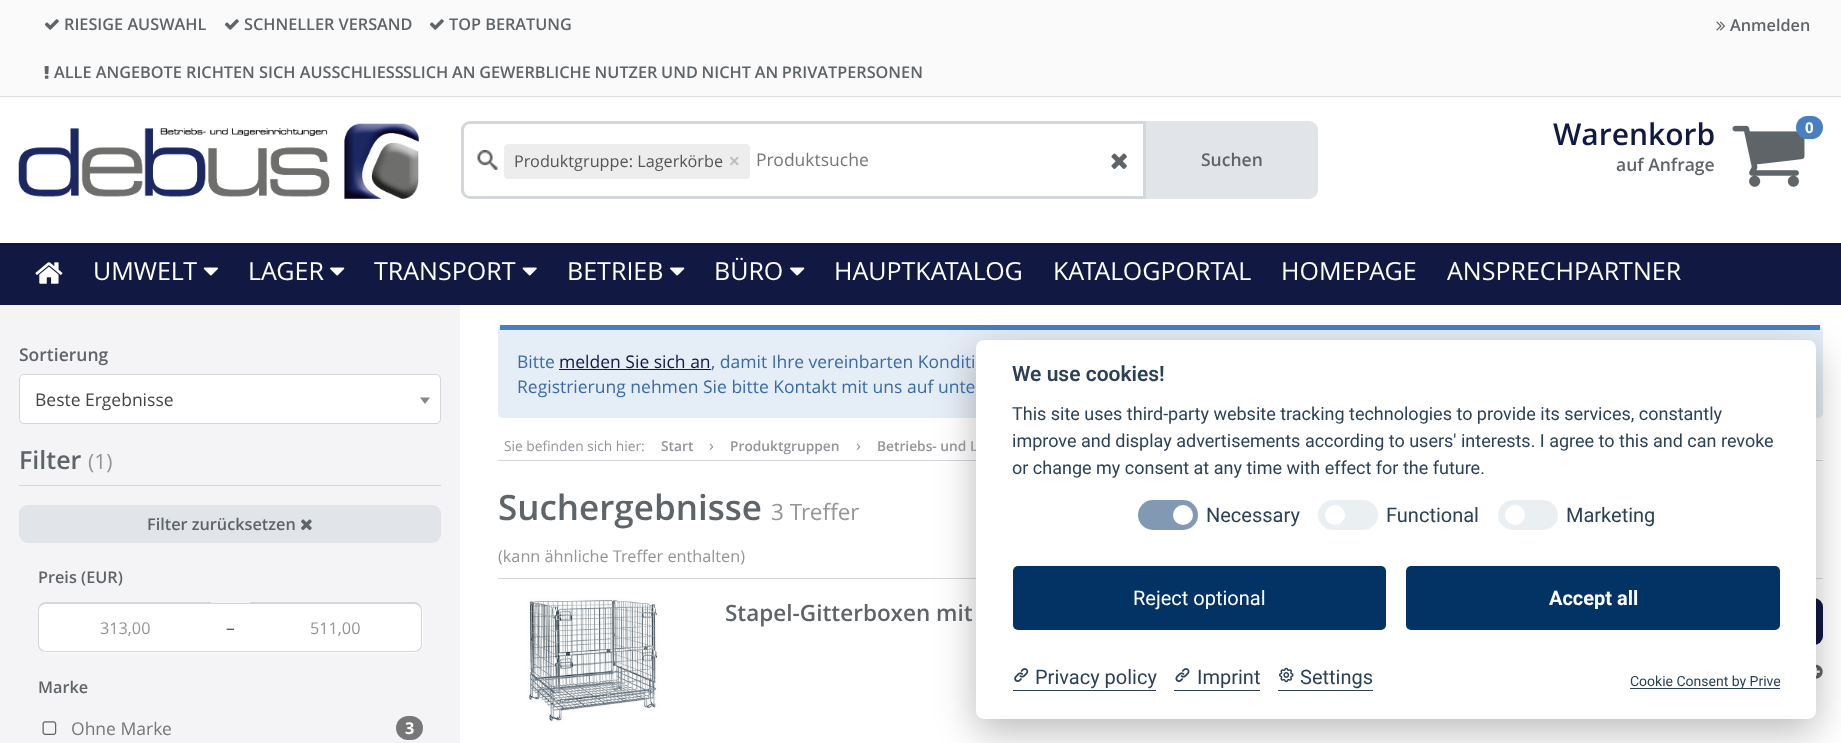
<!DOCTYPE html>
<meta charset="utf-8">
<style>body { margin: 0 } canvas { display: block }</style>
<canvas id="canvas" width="1841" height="743"></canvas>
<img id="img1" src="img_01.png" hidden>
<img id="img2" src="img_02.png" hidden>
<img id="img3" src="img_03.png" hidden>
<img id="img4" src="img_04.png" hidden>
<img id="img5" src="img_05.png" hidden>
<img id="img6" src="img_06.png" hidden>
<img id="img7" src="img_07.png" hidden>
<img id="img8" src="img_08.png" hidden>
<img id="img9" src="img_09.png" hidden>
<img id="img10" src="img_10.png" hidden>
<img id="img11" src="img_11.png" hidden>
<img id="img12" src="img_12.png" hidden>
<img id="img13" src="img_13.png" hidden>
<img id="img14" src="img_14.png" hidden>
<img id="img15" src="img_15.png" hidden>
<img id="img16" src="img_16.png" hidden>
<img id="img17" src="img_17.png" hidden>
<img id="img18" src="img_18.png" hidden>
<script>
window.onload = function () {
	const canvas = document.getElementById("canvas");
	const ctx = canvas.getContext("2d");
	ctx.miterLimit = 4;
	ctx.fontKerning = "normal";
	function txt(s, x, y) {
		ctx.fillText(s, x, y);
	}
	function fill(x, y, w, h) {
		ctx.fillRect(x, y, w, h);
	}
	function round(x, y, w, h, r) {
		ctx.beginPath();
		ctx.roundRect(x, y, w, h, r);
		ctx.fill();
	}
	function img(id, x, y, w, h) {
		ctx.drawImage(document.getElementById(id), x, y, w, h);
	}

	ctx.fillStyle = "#FFFFFF";
	fill(0, 0, 1841, 743);
	ctx.fillStyle = "#FAFAFA";
	fill(0, 0, 1841, 98);
	ctx.fillStyle = "#DFE1E4";
	fill(0, 96, 1841, 1);
	img("img1", 44, 19, 15, 11);
	img("img1", 224, 19, 15, 11);
	img("img1", 429, 19, 15, 11);
	img("img2", 44, 66, 5, 13);
	img("img3", 1716, 21, 9, 10);
	img("img4", 18, 123, 401, 76);
	img("img5", 477, 150, 21, 20);
	ctx.beginPath();
	ctx.roundRect(462.5, 122.5, 682, 75, [7.5, 0, 0, 7.5]);
	ctx.strokeStyle = "#D3D6DA";
	ctx.lineWidth = 3;
	ctx.stroke();
	ctx.fillStyle = "#EDEDED";
	round(504, 144, 246, 35, 4);
	img("img6", 1111, 153, 16, 16);
	ctx.fillStyle = "#E1E4E8";
	ctx.beginPath();
	ctx.roundRect(1146, 121, 172, 78, [0, 9, 9, 0]);
	ctx.fill();
	img("img7", 1732, 125, 73, 62);
	ctx.fillStyle = "#497EBF";
	round(1796, 116, 27, 23, 11.5);
	ctx.fillStyle = "#111942";
	fill(0, 243, 1841, 62);
	img("img8", 35, 262, 28, 22);
	img("img9", 203, 267, 15, 9);
	img("img10", 330, 267, 15, 9);
	img("img11", 522, 267, 15, 9);
	img("img10", 670, 267, 15, 9);
	img("img10", 790, 267, 15, 9);
	ctx.fillStyle = "#F4F4F6";
	fill(0, 305, 460, 438);
	ctx.fillStyle = "#FFFFFF";
	ctx.beginPath();
	ctx.roundRect(19.5, 374.5, 421, 49, 4.5);
	ctx.fill();
	ctx.lineWidth = 1;
	ctx.stroke();
	ctx.fillStyle = "#888888";
	ctx.beginPath();
	ctx.moveTo(420, 397.5);
	ctx.lineTo(430, 397.5);
	ctx.lineTo(425, 404);
	ctx.closePath();
	ctx.fill();
	ctx.fillStyle = "#D3D6DA";
	fill(19, 485, 422, 1);
	ctx.fillStyle = "#E1E4E8";
	round(19, 505, 422, 38, 9);
	img("img12", 301, 519, 11, 12);
	ctx.fillStyle = "#FFFFFF";
	ctx.beginPath();
	ctx.roundRect(38, 603, 173, 50, [9, 0, 0, 9]);
	ctx.fill();
	ctx.fillStyle = "#D3D6DA";
	ctx.beginPath();
	ctx.moveTo(46, 602);
	ctx.lineTo(211, 602);
	ctx.lineTo(211, 652);
	ctx.lineTo(46, 652);
	ctx.bezierCurveTo(41, 652, 38, 649, 38, 644);
	ctx.lineTo(38, 611);
	ctx.bezierCurveTo(38, 606, 41, 602, 46, 602);
	ctx.closePath();
	ctx.moveTo(46, 604);
	ctx.lineTo(211, 604);
	ctx.lineTo(211, 651);
	ctx.lineTo(46, 651);
	ctx.bezierCurveTo(42, 651, 39, 648, 39, 644);
	ctx.lineTo(39, 611);
	ctx.bezierCurveTo(39, 607, 42, 604, 46, 604);
	ctx.closePath();
	ctx.fill("evenodd");
	ctx.fillStyle = "#FFFFFF";
	fill(211, 604, 39, 49);
	ctx.fillStyle = "#D3D6DA";
	fill(211, 603, 39, 1);
	fill(211, 651, 39, 1);
	ctx.fillStyle = "#FFFFFF";
	ctx.beginPath();
	ctx.roundRect(250, 603, 173, 50, [0, 9, 9, 0]);
	ctx.fill();
	ctx.fillStyle = "#D3D6DA";
	ctx.beginPath();
	ctx.moveTo(250, 602);
	ctx.lineTo(414, 602);
	ctx.bezierCurveTo(419, 602, 422, 606, 422, 611);
	ctx.lineTo(422, 644);
	ctx.bezierCurveTo(422, 649, 419, 652, 414, 652);
	ctx.lineTo(250, 652);
	ctx.closePath();
	ctx.moveTo(250, 604);
	ctx.lineTo(414, 604);
	ctx.bezierCurveTo(418, 604, 421, 607, 421, 611);
	ctx.lineTo(421, 644);
	ctx.bezierCurveTo(421, 648, 418, 651, 414, 651);
	ctx.lineTo(250, 651);
	ctx.closePath();
	ctx.fill("evenodd");
	img("img13", 42, 721, 15, 14);
	ctx.fillStyle = "#777777";
	round(396, 716, 27, 24, 12);
	ctx.fillStyle = "#E5EDF6";
	round(498, 325, 1325, 93, 5);
	ctx.fillStyle = "#497EBF";
	fill(500, 325, 1320, 5);
	ctx.fillStyle = "#111942";
	fill(559, 369, 152, 1);
	ctx.fillStyle = "#D3D6DA";
	fill(498, 460, 1325, 1);
	fill(498, 578, 1325, 1);
	img("img14", 526, 597, 133, 126);
	ctx.fillStyle = "#111942";
	round(1686, 598, 137, 47, 9);
	img("img15", 1816, 664, 7, 15);
	ctx.fillStyle = "rgba(2, 2, 3, 0.28)";
	ctx.filter = "blur(19px)";
	ctx.beginPath();
	ctx.roundRect(976, 353, 840, 378, 8);
	ctx.fill();
	ctx.filter = "none";
	ctx.font = "600 16.25px Open Sans";
	ctx.fillStyle = "#5E6468";
	txt("RIESIGE AUSWAHL", 64, 30);
	txt("SCHNELLER VERSAND", 244, 30);
	txt("TOP BERATUNG", 449, 30);
	txt("ALLE ANGEBOTE RICHTEN SICH AUSSCHLIESS", 54, 78);
	ctx.wordSpacing = "-0.5px";
	txt("SLICH AN GEWERBLICHE NUTZER UND NICHT AN PRIVATPERSONEN", 403, 78);
	ctx.wordSpacing = "0px";
	txt("Anmelden", 1730, 31);
	ctx.font = "16.25px Open Sans";
	ctx.fillStyle = "#555555";
	txt("Produktgruppe: Lagerkörbe", 514, 167);
	ctx.font = "bold 18px Liberation Sans";
	ctx.fillStyle = "#BEBEBE";
	txt("×", 729, 167);
	ctx.font = "17.5px Open Sans";
	ctx.fillStyle = "#777777";
	txt("Produktsuche", 756, 166);
	ctx.font = "600 17.5px Open Sans";
	ctx.fillStyle = "#5E6468";
	txt("Suchen", 1201, 166);
	ctx.font = "600 30px Open Sans";
	ctx.fillStyle = "#111942";
	txt("Warenkorb", 1553, 145);
	ctx.font = "600 17.5px Open Sans";
	ctx.fillStyle = "#5E6468";
	txt("auf Anfrage", 1616, 171);
	ctx.font = "bold 15px Open Sans";
	ctx.fillStyle = "#FFFFFF";
	txt("0", 1805, 133);
	ctx.font = "25px Open Sans";
	txt("UMWELT", 93, 280);
	txt("LAGER", 248, 280);
	txt("TRANSPORT", 374, 280);
	txt("BETRIEB", 567, 280);
	txt("BÜRO", 714, 280);
	txt("HAUPTKATALOG", 834, 280);
	txt("KATALOGPORTAL", 1053, 280);
	txt("HOMEPAGE", 1281, 280);
	txt("ANSPRECHPARTNER", 1447, 280);
	ctx.font = "600 17.5px Open Sans";
	ctx.fillStyle = "#5E6468";
	txt("Sortierung", 19, 361);
	ctx.font = "17.5px Open Sans";
	ctx.fillStyle = "#444444";
	txt("Beste Ergebnisse", 35, 406);
	ctx.font = "600 25px Open Sans";
	ctx.fillStyle = "#5E6468";
	txt("Filter", 19, 469);
	ctx.font = "21px Open Sans";
	ctx.fillStyle = "#949598";
	txt("(1)", 88, 469);
	ctx.font = "600 16.25px Open Sans";
	ctx.fillStyle = "#5E6468";
	txt("Filter zurücksetzen", 147, 530);
	txt("Preis (EUR)", 38, 583);
	ctx.font = "16.25px Open Sans";
	ctx.fillStyle = "#949598";
	txt("313,00", 100, 634);
	ctx.font = "17.5px Open Sans";
	ctx.fillStyle = "#555555";
	txt("–", 226, 634);
	ctx.font = "16.25px Open Sans";
	ctx.fillStyle = "#949598";
	txt("511,00", 310, 634);
	ctx.font = "600 16.25px Open Sans";
	ctx.fillStyle = "#5E6468";
	txt("Marke", 38, 693);
	ctx.font = "17.5px Open Sans";
	ctx.fillStyle = "#777777";
	txt("Ohne Marke", 71, 735);
	ctx.font = "bold 16.25px Open Sans";
	ctx.fillStyle = "#FFFFFF";
	txt("3", 405, 734);
	ctx.font = "17.5px Open Sans";
	ctx.fillStyle = "#3A6BA6";
	txt("Bitte", 517, 368);
	ctx.fillStyle = "#111942";
	txt("melden Sie sich an", 559, 368);
	ctx.fillStyle = "#3A6BA6";
	txt(", damit Ihre vereinbarten Konditi", 711, 368);
	txt("Registrierung nehmen Sie bitte Kontakt mit uns auf unte", 517, 393);
	ctx.font = "13.75px Open Sans";
	ctx.fillStyle = "#949598";
	txt("Sie befinden sich hier:", 504, 451);
	ctx.font = "600 13.75px Open Sans";
	txt("Start", 661, 451);
	ctx.font = "16px Open Sans";
	txt("›", 709, 451);
	ctx.font = "600 13.75px Open Sans";
	txt("Produktgruppen", 730, 451);
	ctx.font = "16px Open Sans";
	txt("›", 856, 451);
	ctx.font = "600 13.75px Open Sans";
	txt("Betriebs- und L", 877, 451);
	ctx.font = "600 35px Open Sans";
	ctx.fillStyle = "#5E6468";
	txt("Suchergebnisse", 498, 520);
	ctx.font = "22.5px Open Sans";
	ctx.fillStyle = "#949598";
	txt("3 Treffer", 771, 520);
	ctx.font = "16.25px Open Sans";
	txt("(kann ähnliche Treffer enthalten)", 498, 562);
	ctx.font = "600 22.5px Open Sans";
	ctx.fillStyle = "#5E6468";
	txt("Stapel-Gitterboxen mit", 725, 621);
	ctx.fillStyle = "#FFFFFF";
	round(976, 340, 840, 379, 8);
	ctx.font = "600 21px Roboto";
	ctx.fillStyle = "#2D4156";
	txt("We use cookies!", 1012, 381);
	ctx.font = "18px Roboto";
	txt("This site uses third-party website tracking technologies to provide its services, constantly", 1012, 420);
	txt("improve and display advertisements according to users' interests. I agree to this and can revoke", 1012, 447);
	txt("or change my consent at any time with effect for the future.", 1012, 474);
	ctx.fillStyle = "#8199B2";
	round(1138, 500, 60, 30, 15);
	ctx.fillStyle = "#FFFFFF";
	ctx.beginPath();
	ctx.arc(1183, 515, 10, 0, Math.PI * 2);
	ctx.fill();
	ctx.font = "20px Roboto";
	ctx.fillStyle = "#2D4156";
	txt("Necessary", 1206, 522);
	ctx.fillStyle = "#EAEFF2";
	round(1318, 500, 60, 30, 15);
	ctx.fillStyle = "#FFFFFF";
	ctx.beginPath();
	ctx.arc(1335, 515, 10, 0, Math.PI * 2);
	ctx.fill();
	ctx.fillStyle = "#2D4156";
	txt("Functional", 1386, 522);
	ctx.fillStyle = "#EAEFF2";
	round(1498, 500, 60, 30, 15);
	ctx.fillStyle = "#FFFFFF";
	ctx.beginPath();
	ctx.arc(1515, 515, 10, 0, Math.PI * 2);
	ctx.fill();
	ctx.fillStyle = "#2D4156";
	txt("Marketing", 1566, 522);
	ctx.fillStyle = "#033365";
	round(1013, 566, 373, 64, 5);
	ctx.fillStyle = "#FFFFFF";
	txt("Reject optional", 1133, 605);
	ctx.fillStyle = "#033365";
	round(1406, 566, 374, 64, 5);
	ctx.font = "bold 20px Roboto";
	ctx.fillStyle = "#FFFFFF";
	txt("Accept all", 1549, 605);
	ctx.fillStyle = "#2D4156";
	fill(1013, 690, 143, 1);
	img("img16", 1014, 668, 15, 14);
	ctx.font = "20px Roboto";
	txt("Privacy policy", 1035, 684);
	fill(1174, 690, 86, 1);
	img("img17", 1175, 668, 15, 14);
	txt("Imprint", 1197, 684);
	fill(1278, 690, 95, 1);
	img("img18", 1279, 667, 15, 16);
	txt("Settings", 1300, 684);
	fill(1630, 688, 150, 1);
	ctx.font = "14px Roboto";
	txt("Cookie Consent by Prive", 1630, 686);
};
</script>
